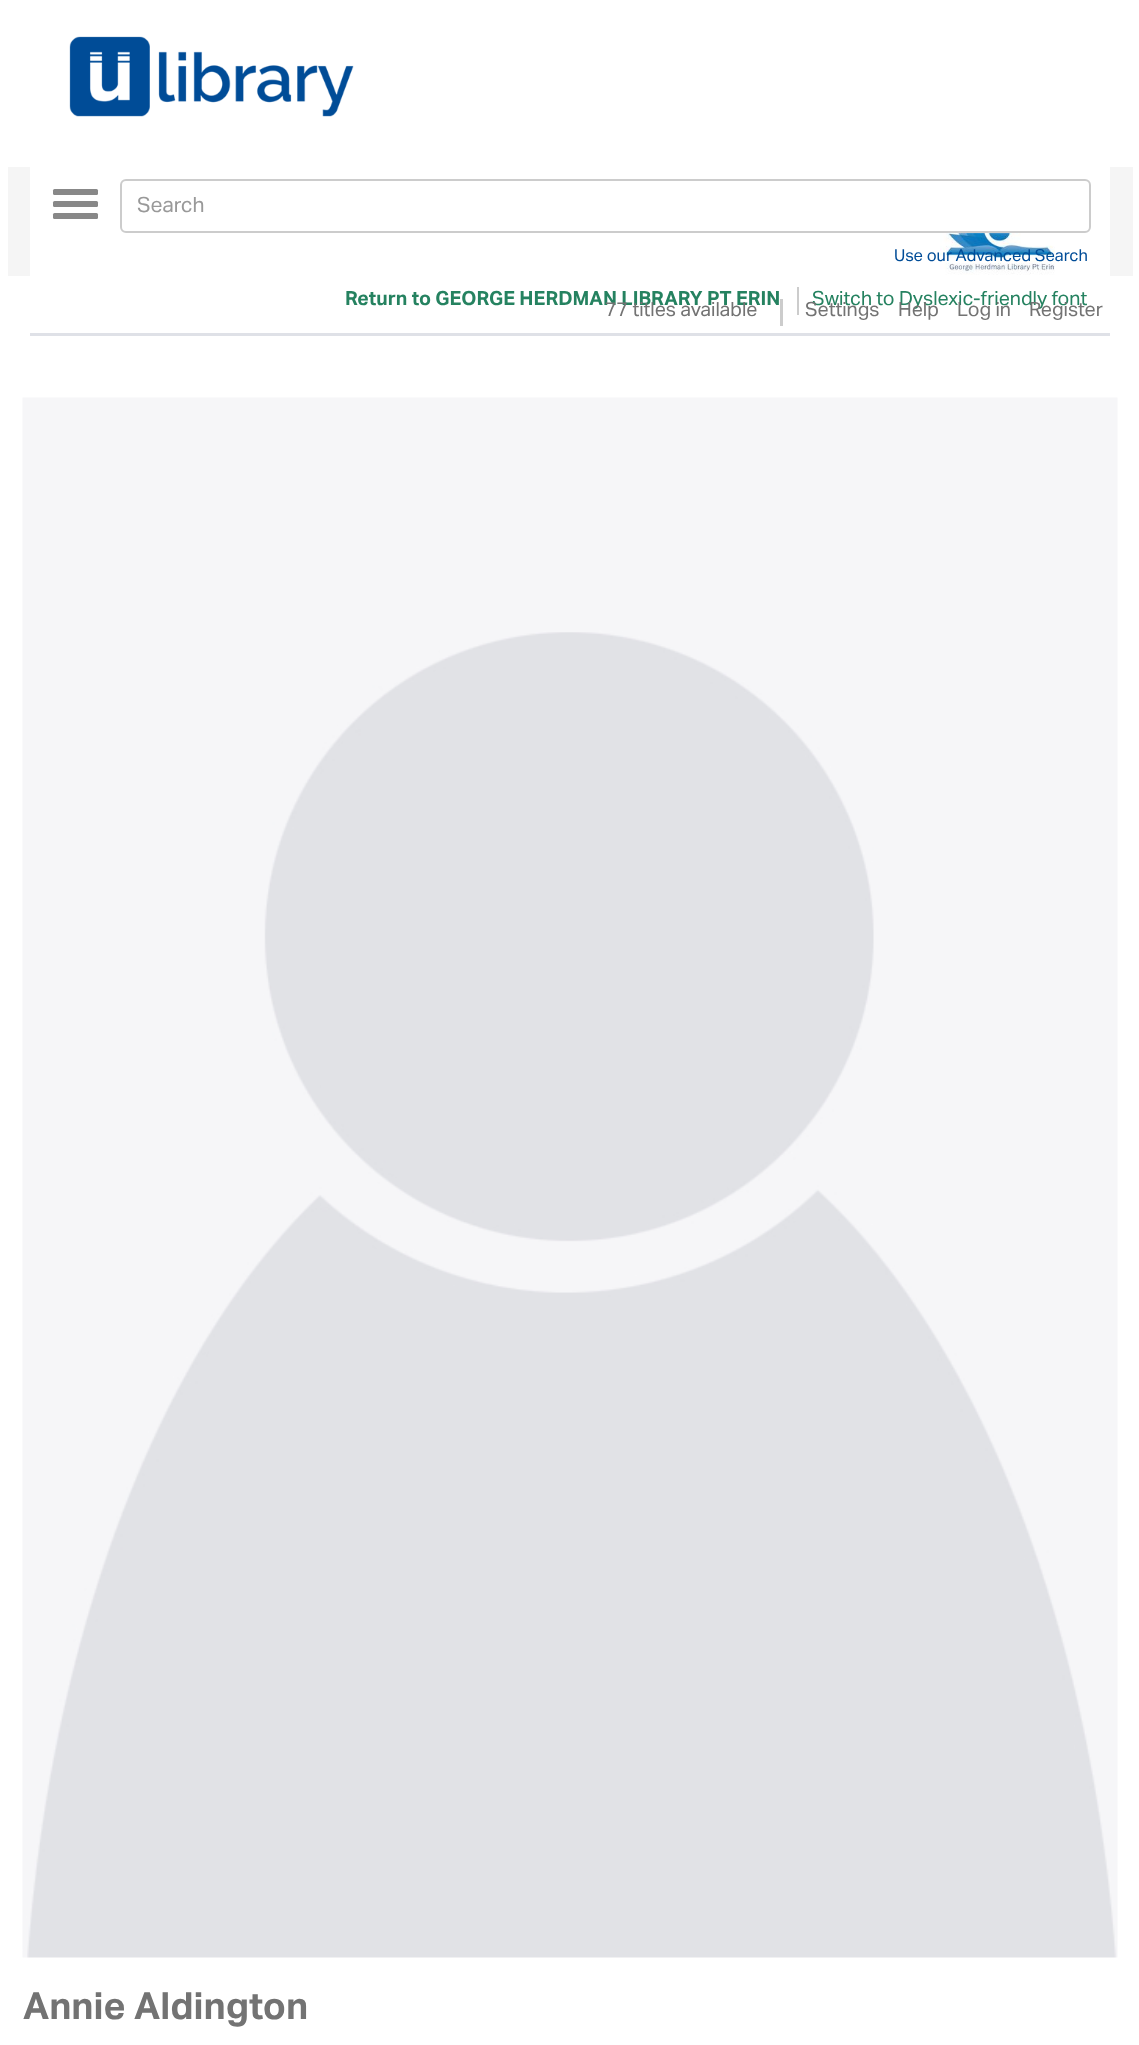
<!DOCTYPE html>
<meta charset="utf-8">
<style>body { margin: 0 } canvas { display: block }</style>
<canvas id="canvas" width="1139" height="2045"></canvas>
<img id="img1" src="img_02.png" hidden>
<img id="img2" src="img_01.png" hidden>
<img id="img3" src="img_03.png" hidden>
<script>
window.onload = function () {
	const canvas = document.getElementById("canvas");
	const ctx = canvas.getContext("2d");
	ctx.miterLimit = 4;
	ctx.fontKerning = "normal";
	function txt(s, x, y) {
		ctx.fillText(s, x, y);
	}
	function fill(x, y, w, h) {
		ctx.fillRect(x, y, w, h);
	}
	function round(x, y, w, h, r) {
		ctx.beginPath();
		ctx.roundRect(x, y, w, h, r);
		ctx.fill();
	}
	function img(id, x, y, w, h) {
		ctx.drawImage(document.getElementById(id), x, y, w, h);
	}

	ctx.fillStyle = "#FFFFFF";
	fill(0, 0, 1139, 2045);
	ctx.fillStyle = "#F5F5F5";
	fill(8, 167, 1125, 109);
	ctx.fillStyle = "#FFFFFF";
	fill(30, 167, 1080, 109);
	ctx.fillStyle = "#888888";
	round(53, 189, 45, 6, 1.5);
	round(53, 201, 45, 6, 1.5);
	round(53, 213, 45, 6, 1.5);
	img("img1", 940, 233, 115, 42);
	ctx.fillStyle = "rgba(255, 255, 255, 0.1)";
	fill(949, 233, 61, 1);
	ctx.beginPath();
	ctx.roundRect(121, 180, 969, 52, 5);
	ctx.strokeStyle = "#CCCCCC";
	ctx.lineWidth = 2;
	ctx.stroke();
	img("img2", 69, 36, 285, 81);
	ctx.fillStyle = "#CCCCCC";
	fill(797, 287, 2, 28);
	fill(780, 299, 3, 27);
	ctx.fillStyle = "#DFE1E7";
	fill(30, 333, 1080, 3);
	img("img3", 22, 397, 1096, 1561);
	ctx.font = "21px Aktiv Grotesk";
	ctx.fillStyle = "#999999";
	txt("Search", 137, 212);
	ctx.font = "16.5px Aktiv Grotesk";
	ctx.fillStyle = "#004C97";
	txt("Use our Advanced Search", 894, 261);
	ctx.font = "bold 19.5px Aktiv Grotesk";
	ctx.fillStyle = "#258260";
	txt("Return to GEORGE HERDMAN LIBRARY PT ERIN", 345, 305);
	ctx.font = "19.5px Aktiv Grotesk";
	txt("Switch to Dyslexic-friendly font", 812, 305);
	ctx.fillStyle = "#737373";
	txt("77 titles available", 605, 316);
	txt("Settings", 805, 316);
	txt("Help", 898, 316);
	txt("Log in", 957, 316);
	txt("Register", 1029, 316);
	ctx.font = "bold 37.5px Aktiv Grotesk";
	txt("Annie Aldington", 23, 2019);
};
</script>
